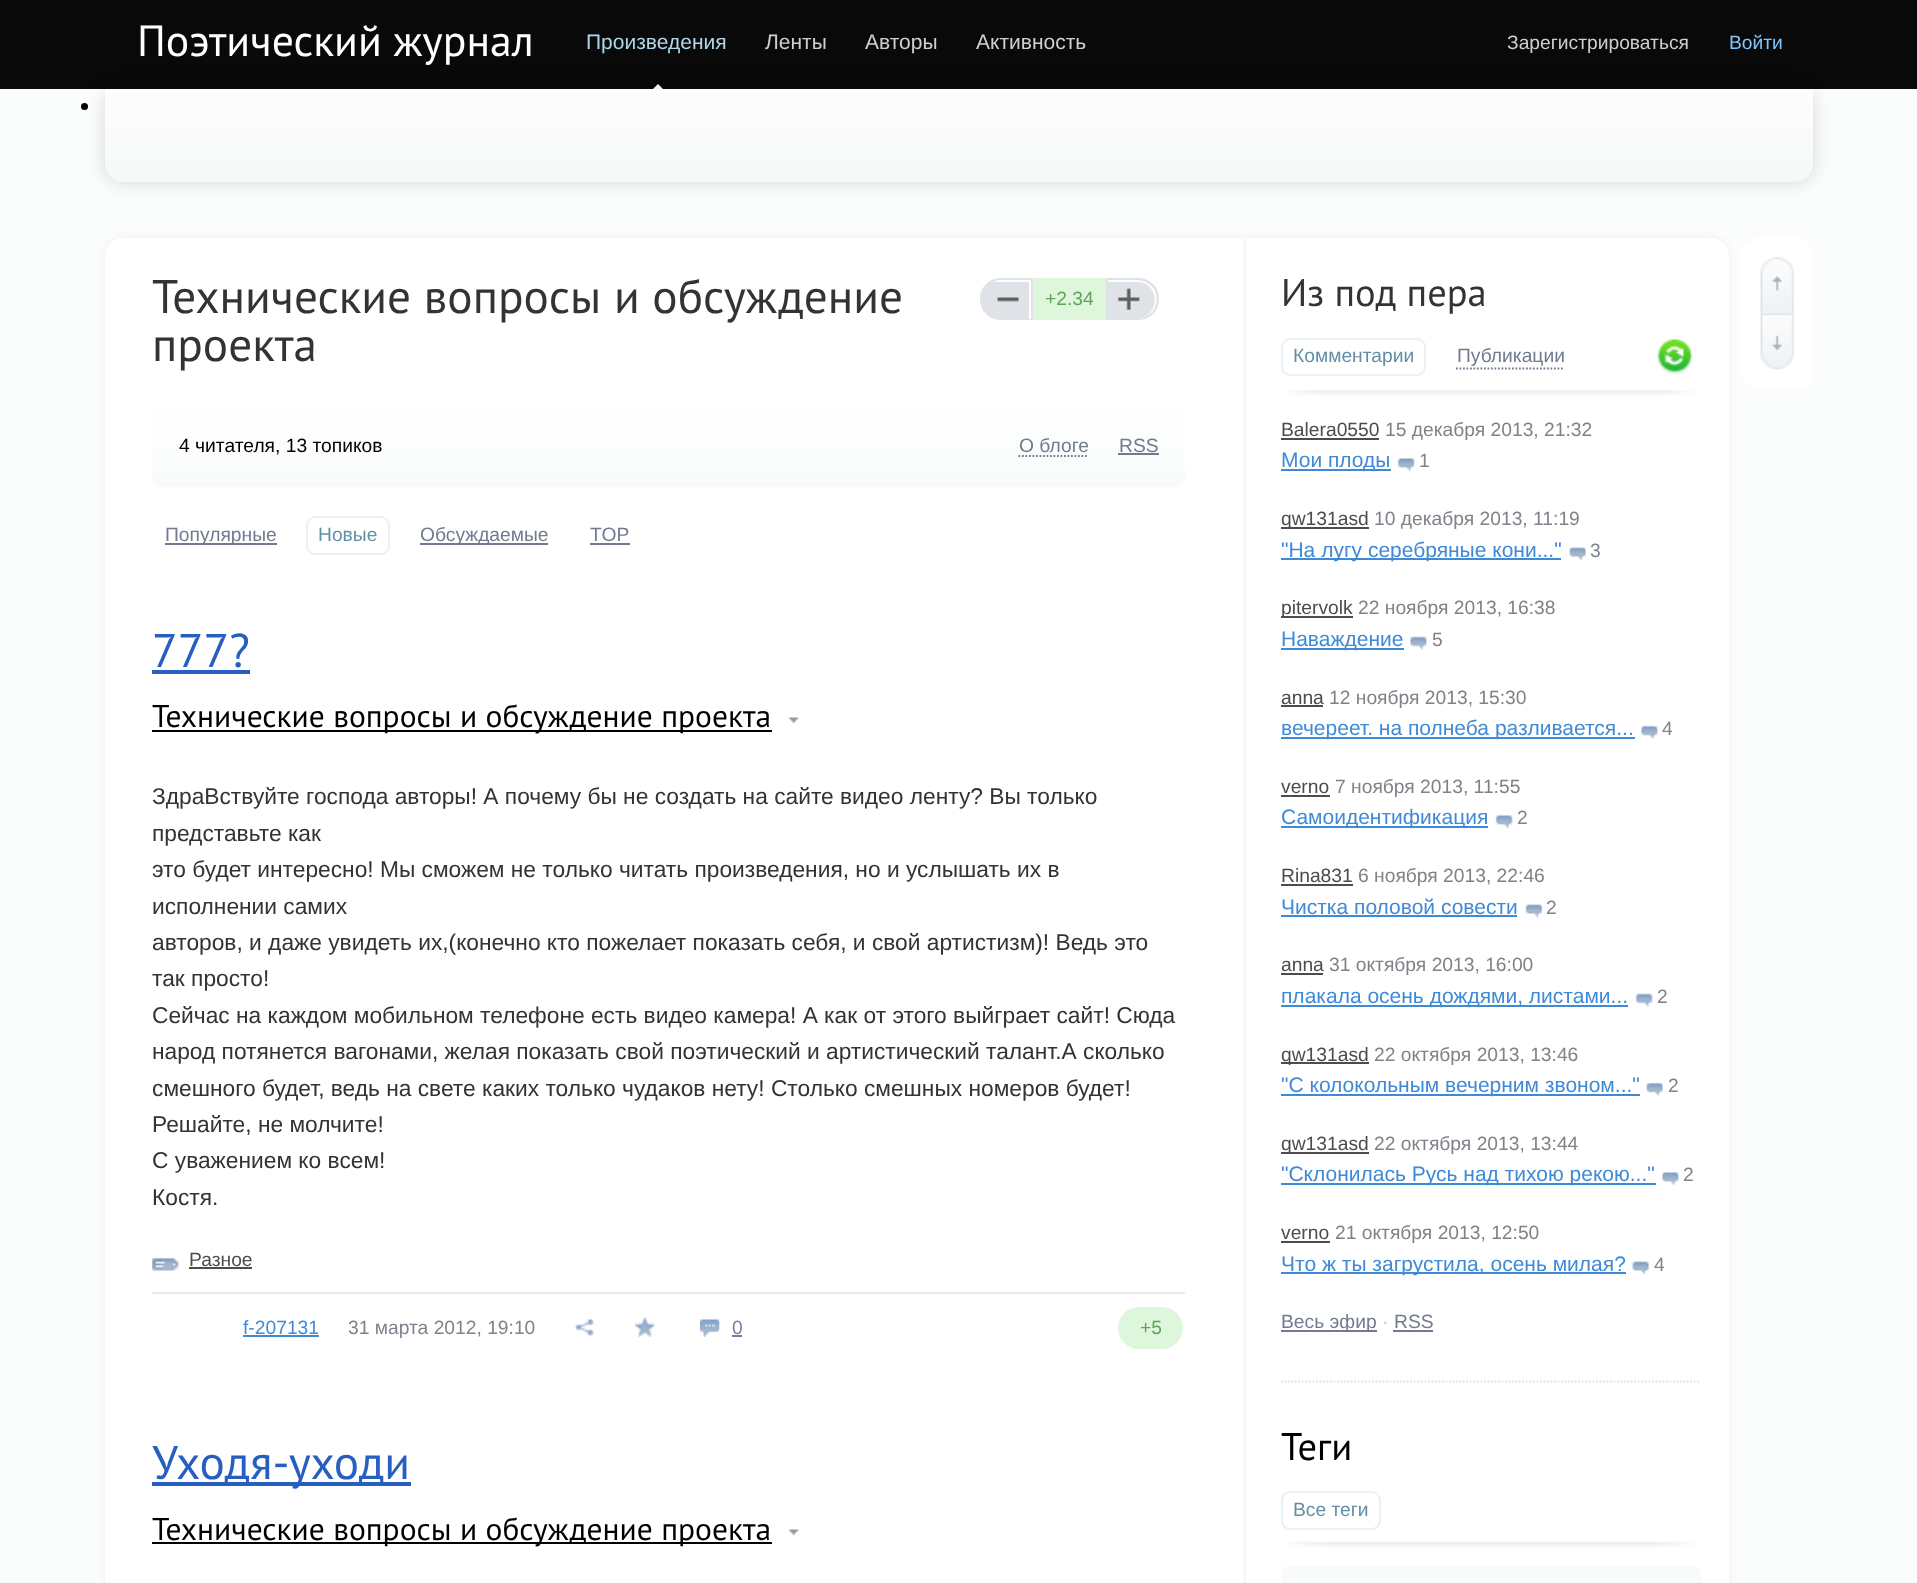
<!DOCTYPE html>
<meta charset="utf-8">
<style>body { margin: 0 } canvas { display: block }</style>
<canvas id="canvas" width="1917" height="1583"></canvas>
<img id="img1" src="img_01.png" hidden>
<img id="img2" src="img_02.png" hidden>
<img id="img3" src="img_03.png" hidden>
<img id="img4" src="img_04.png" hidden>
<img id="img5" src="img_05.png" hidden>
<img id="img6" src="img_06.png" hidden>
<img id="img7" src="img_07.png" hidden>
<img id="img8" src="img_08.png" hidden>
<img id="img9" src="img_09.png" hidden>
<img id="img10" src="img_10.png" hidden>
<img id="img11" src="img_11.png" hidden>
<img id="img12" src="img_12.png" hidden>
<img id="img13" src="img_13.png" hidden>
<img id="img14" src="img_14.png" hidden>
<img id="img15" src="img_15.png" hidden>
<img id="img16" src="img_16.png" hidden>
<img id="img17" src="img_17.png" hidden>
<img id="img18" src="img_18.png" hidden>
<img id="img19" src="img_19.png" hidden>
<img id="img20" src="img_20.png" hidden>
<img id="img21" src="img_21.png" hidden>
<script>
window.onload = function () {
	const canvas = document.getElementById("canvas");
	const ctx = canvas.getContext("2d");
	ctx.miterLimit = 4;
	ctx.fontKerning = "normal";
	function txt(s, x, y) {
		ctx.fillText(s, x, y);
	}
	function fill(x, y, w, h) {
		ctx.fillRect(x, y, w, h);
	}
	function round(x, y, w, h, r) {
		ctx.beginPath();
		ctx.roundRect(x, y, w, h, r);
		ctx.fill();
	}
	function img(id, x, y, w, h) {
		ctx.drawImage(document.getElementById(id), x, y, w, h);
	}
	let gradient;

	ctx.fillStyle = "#FBFCFC";
	fill(0, 0, 1917, 1583);
	ctx.fillStyle = "#090909";
	fill(0, 0, 1917, 89);
	ctx.fillStyle = "#FFFFFF";
	ctx.beginPath();
	ctx.moveTo(663, 89);
	ctx.lineTo(653, 89);
	ctx.lineTo(658, 84);
	ctx.closePath();
	ctx.fill();
	ctx.fillStyle = "#000000";
	ctx.beginPath();
	ctx.arc(84.5, 106.5, 3.5, 0, Math.PI * 2);
	ctx.fill();
	ctx.fillStyle = "rgba(0, 0, 0, 0.15)";
	ctx.filter = "blur(9px)";
	ctx.beginPath();
	ctx.roundRect(105, 89, 1708, 93, 18);
	ctx.fill();
	ctx.filter = "none";
	gradient = ctx.createLinearGradient(959, 89, 959, 182);
	gradient.addColorStop(0, "#FDFDFD");
	gradient.addColorStop(1, "#F6F8F9");
	ctx.fillStyle = gradient;
	ctx.beginPath();
	ctx.roundRect(105, 89, 1708, 93, [0, 0, 18, 18]);
	ctx.fill();
	ctx.fillStyle = "rgba(0, 0, 0, 0.05)";
	ctx.filter = "blur(4.5px)";
	ctx.beginPath();
	ctx.roundRect(105, 238, 1624, 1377, 18);
	ctx.fill();
	ctx.filter = "none";
	ctx.fillStyle = "#FFFFFF";
	round(105, 238, 1624, 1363, 18);
	img("img1", 1244, 238, 2, 1345);
	ctx.fillStyle = "#DFE3E8";
	ctx.beginPath();
	ctx.moveTo(1001, 278);
	ctx.lineTo(1033, 278);
	ctx.lineTo(1033, 320);
	ctx.lineTo(1001, 320);
	ctx.bezierCurveTo(989, 320, 980, 311, 980, 299);
	ctx.bezierCurveTo(980, 287, 989, 278, 1001, 278);
	ctx.closePath();
	ctx.fill();
	ctx.fillStyle = "#FEFEFE";
	ctx.beginPath();
	ctx.moveTo(1001.5, 280);
	ctx.bezierCurveTo(998.5, 280, 995.5, 280.5, 993, 282);
	ctx.lineTo(1031, 282);
	ctx.lineTo(1031, 280);
	ctx.closePath();
	ctx.fill();
	ctx.fillStyle = "#FFFFFF";
	fill(1029, 280, 2, 39);
	img("img2", 997, 297, 22, 5);
	ctx.fillStyle = "#DEF7DC";
	fill(1033, 278, 73, 42);
	ctx.fillStyle = "#DFE3E8";
	ctx.beginPath();
	ctx.moveTo(1106, 278);
	ctx.lineTo(1106, 320);
	ctx.lineTo(1138, 320);
	ctx.bezierCurveTo(1150, 320, 1159, 311, 1159, 299);
	ctx.bezierCurveTo(1159, 287, 1150, 278, 1138, 278);
	ctx.closePath();
	ctx.fill();
	ctx.fillStyle = "#FEFEFE";
	ctx.beginPath();
	ctx.moveTo(1108, 280);
	ctx.lineTo(1128, 280);
	ctx.bezierCurveTo(1136, 280, 1145, 279, 1151, 286);
	ctx.lineTo(1150, 287);
	ctx.bezierCurveTo(1147, 284, 1142, 282, 1138, 282);
	ctx.lineTo(1108, 282);
	ctx.closePath();
	ctx.fill();
	ctx.fillStyle = "#FFFFFF";
	ctx.beginPath();
	ctx.moveTo(1151, 285.5);
	ctx.lineTo(1149.5, 287);
	ctx.bezierCurveTo(1160.5, 297.5, 1153.5, 318, 1138, 318);
	ctx.bezierCurveTo(1155.5, 318, 1162.5, 297, 1151, 285.5);
	ctx.closePath();
	ctx.fill();
	img("img3", 1117, 288, 23, 24);
	gradient = ctx.createLinearGradient(669, 402, 669, 487);
	gradient.addColorStop(0, "#FFFFFF");
	gradient.addColorStop(1, "#F9FBFB");
	ctx.fillStyle = gradient;
	round(152, 403, 1033, 84, 9);
	ctx.beginPath();
	ctx.moveTo(1018.5, 456);
	ctx.lineTo(1088.5, 456);
	ctx.strokeStyle = "#727A90";
	ctx.lineWidth = 1.8;
	ctx.setLineDash([1.75, 1.75]);
	ctx.stroke();
	ctx.fillStyle = "#727A90";
	fill(1118, 453, 41, 2);
	fill(165, 543, 112, 2);
	ctx.beginPath();
	ctx.roundRect(307, 517, 82, 37, 8);
	ctx.strokeStyle = "#EBF0F4";
	ctx.lineWidth = 2;
	ctx.setLineDash([]);
	ctx.stroke();
	fill(420, 543, 128, 2);
	fill(590, 543, 40, 2);
	ctx.fillStyle = "#275EC2";
	fill(152, 670, 98, 4);
	ctx.fillStyle = "#000000";
	fill(152, 730, 620, 2);
	img("img4", 788, 717, 11, 7);
	img("img5", 152, 1257, 27, 14);
	ctx.fillStyle = "#4C4C4C";
	fill(189, 1267, 63, 2);
	ctx.fillStyle = "#E7EBED";
	fill(152, 1292, 1033, 2);
	ctx.fillStyle = "#3F8AD7";
	fill(243, 1335, 76, 2);
	img("img6", 575, 1319, 19, 17);
	img("img7", 635, 1317, 20, 20);
	img("img8", 700, 1319, 20, 18);
	ctx.fillStyle = "#727FA0";
	fill(732, 1335, 10, 2);
	ctx.fillStyle = "#DEF7DC";
	round(1118, 1307, 65, 42, 21);
	ctx.fillStyle = "#275EC2";
	fill(152, 1482, 259, 4);
	ctx.fillStyle = "#000000";
	fill(152, 1542, 620, 2);
	img("img4", 788, 1529, 11, 7);
	ctx.beginPath();
	ctx.moveTo(1281, 1381.5);
	ctx.lineTo(1701, 1381.5);
	ctx.strokeStyle = "#DCE1E6";
	ctx.lineWidth = 1.8;
	ctx.setLineDash([1.75, 1.75]);
	ctx.stroke();
	img("img9", 1288, 390, 404, 6);
	ctx.beginPath();
	ctx.roundRect(1282, 339, 143, 36, 8);
	ctx.strokeStyle = "#EBF0F4";
	ctx.lineWidth = 2;
	ctx.setLineDash([]);
	ctx.stroke();
	ctx.beginPath();
	ctx.moveTo(1456, 368.5);
	ctx.lineTo(1564.5, 368.5);
	ctx.strokeStyle = "#727A90";
	ctx.lineWidth = 1.8;
	ctx.setLineDash([1.75, 1.75]);
	ctx.stroke();
	img("img10", 1657, 339, 36, 36);
	ctx.fillStyle = "#4C4C4C";
	fill(1281, 438, 98, 2);
	ctx.fillStyle = "#3F8AD7";
	fill(1281, 469, 110, 2);
	img("img11", 1397, 458, 18, 14);
	ctx.fillStyle = "#4C4C4C";
	fill(1281, 527, 88, 2);
	ctx.fillStyle = "#3F8AD7";
	fill(1281, 558, 280, 2);
	img("img12", 1569, 547, 17, 14);
	ctx.fillStyle = "#4C4C4C";
	fill(1281, 616, 72, 2);
	ctx.fillStyle = "#3F8AD7";
	fill(1281, 648, 123, 2);
	img("img13", 1410, 636, 17, 14);
	ctx.fillStyle = "#4C4C4C";
	fill(1281, 705, 42, 2);
	ctx.fillStyle = "#3F8AD7";
	fill(1281, 737, 354, 2);
	img("img14", 1641, 725, 17, 14);
	ctx.fillStyle = "#4C4C4C";
	fill(1281, 795, 49, 2);
	ctx.fillStyle = "#3F8AD7";
	fill(1281, 826, 207, 2);
	img("img11", 1495, 815, 18, 14);
	ctx.fillStyle = "#4C4C4C";
	fill(1281, 884, 72, 2);
	ctx.fillStyle = "#3F8AD7";
	fill(1281, 915, 236, 2);
	img("img15", 1525, 904, 18, 14);
	ctx.fillStyle = "#4C4C4C";
	fill(1281, 973, 42, 2);
	ctx.fillStyle = "#3F8AD7";
	fill(1281, 1005, 347, 2);
	img("img16", 1635, 993, 18, 14);
	ctx.fillStyle = "#4C4C4C";
	fill(1281, 1062, 88, 2);
	ctx.fillStyle = "#3F8AD7";
	fill(1281, 1094, 359, 2);
	img("img17", 1646, 1082, 17, 14);
	ctx.fillStyle = "#4C4C4C";
	fill(1281, 1152, 88, 2);
	ctx.fillStyle = "#3F8AD7";
	fill(1281, 1183, 375, 2);
	img("img18", 1662, 1172, 17, 14);
	ctx.fillStyle = "#4C4C4C";
	fill(1281, 1241, 49, 2);
	ctx.fillStyle = "#3F8AD7";
	fill(1281, 1272, 345, 2);
	img("img12", 1632, 1261, 17, 14);
	ctx.fillStyle = "#727A90";
	fill(1281, 1330, 96, 2);
	fill(1393, 1330, 40, 2);
	img("img19", 1287, 1541, 406, 7);
	ctx.beginPath();
	ctx.roundRect(1282, 1492, 98, 37, 8);
	ctx.strokeStyle = "#EBF0F4";
	ctx.lineWidth = 2;
	ctx.setLineDash([]);
	ctx.stroke();
	ctx.fillStyle = "#F9FBFB";
	round(1281, 1565, 420, 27, 9);
	ctx.fillStyle = "#FFFFFF";
	round(1741, 238, 72, 151, 18);
	img("img20", 1760, 257, 34, 57);
	img("img21", 1760, 313, 34, 57);
	ctx.font = "43.75px PT Sans";
	txt("Поэтический журнал", 137, 56);
	ctx.font = "21px Liberation Sans";
	ctx.fillStyle = "#AED6E9";
	txt("Произведения", 586, 49);
	ctx.fillStyle = "#CFCFCF";
	txt("Ленты", 765, 49);
	txt("Авторы", 865, 49);
	txt("Активность", 976, 49);
	ctx.font = "19.25px Liberation Sans";
	txt("Зарегистрироваться", 1507, 49);
	ctx.fillStyle = "#7DC6FF";
	txt("Войти", 1729, 49);
	ctx.font = "47.25px PT Sans";
	ctx.fillStyle = "#333333";
	txt("Технические вопросы и обсуждение", 152, 313);
	txt("проекта", 152, 361);
	ctx.font = "19.25px Liberation Sans";
	ctx.fillStyle = "#5FA459";
	txt("+2.34", 1045, 305);
	ctx.fillStyle = "#000000";
	txt("4 читателя, 13 топиков", 179, 452);
	ctx.fillStyle = "#727A90";
	txt("О блоге", 1019, 452);
	txt("RSS", 1119, 452);
	txt("Популярные", 165, 541);
	ctx.fillStyle = "#628FA5";
	txt("Новые", 318, 541);
	ctx.fillStyle = "#727A90";
	txt("Обсуждаемые", 420, 541);
	txt("TOP", 590, 541);
	ctx.font = "47.25px PT Sans";
	ctx.fillStyle = "#275EC2";
	txt("777?", 152, 667);
	ctx.font = "31.5px PT Sans";
	ctx.fillStyle = "#000000";
	txt("Технические вопросы и обсуждение проекта", 152, 727);
	ctx.font = "22.75px Liberation Sans";
	ctx.fillStyle = "#333333";
	txt("ЗдраВствуйте господа авторы! А почему бы не создать на сайте видео ленту? Вы только", 152, 804);
	txt("представьте как", 152, 841);
	txt("это будет интересно! Мы сможем не только читать произведения, но и услышать их в", 152, 877);
	txt("исполнении самих", 152, 914);
	txt("авторов, и даже увидеть их,(конечно кто пожелает показать себя, и свой артистизм)! Ведь это", 152, 950);
	txt("так просто!", 152, 986);
	txt("Сейчас на каждом мобильном телефоне есть видео камера! А как от этого выйграет сайт! Сюда", 152, 1023);
	txt("народ потянется вагонами, желая показать свой поэтический и артистический талант.А сколько", 152, 1059);
	txt("смешного будет, ведь на свете каких только чудаков нету! Столько смешных номеров будет!", 152, 1096);
	txt("Решайте, не молчите!", 152, 1132);
	txt("С уважением ко всем!", 152, 1168);
	txt("Костя.", 152, 1205);
	ctx.font = "19.25px Liberation Sans";
	ctx.fillStyle = "#4C4C4C";
	txt("Разное", 189, 1266);
	ctx.fillStyle = "#3F8AD7";
	txt("f-207131", 243, 1334);
	ctx.fillStyle = "#7B848D";
	txt("31 марта 2012, 19:10", 348, 1334);
	ctx.fillStyle = "#727FA0";
	txt("0", 732, 1334);
	ctx.fillStyle = "#5FA459";
	txt("+5", 1140, 1334);
	ctx.font = "47.25px PT Sans";
	ctx.fillStyle = "#275EC2";
	txt("Уходя-уходи", 152, 1479);
	ctx.font = "31.5px PT Sans";
	ctx.fillStyle = "#000000";
	txt("Технические вопросы и обсуждение проекта", 152, 1540);
	ctx.font = "38.5px PT Sans";
	ctx.fillStyle = "#333333";
	txt("Из под пера", 1281, 306);
	ctx.font = "19.25px Liberation Sans";
	ctx.fillStyle = "#628FA5";
	txt("Комментарии", 1293, 362);
	ctx.fillStyle = "#727A90";
	txt("Публикации", 1457, 362);
	ctx.fillStyle = "#4C4C4C";
	txt("Balera0550", 1281, 436);
	ctx.fillStyle = "#818189";
	txt("15 декабря 2013, 21:32", 1385, 436);
	ctx.font = "21px Liberation Sans";
	ctx.fillStyle = "#3F8AD7";
	txt("Мои плоды", 1281, 467);
	ctx.font = "19.25px Liberation Sans";
	ctx.fillStyle = "#818189";
	txt("1", 1419, 467);
	ctx.fillStyle = "#4C4C4C";
	txt("qw131asd", 1281, 525);
	ctx.fillStyle = "#818189";
	txt("10 декабря 2013, 11:19", 1374, 525);
	ctx.font = "21px Liberation Sans";
	ctx.fillStyle = "#3F8AD7";
	txt("\"На лугу серебряные кони...\"", 1281, 557);
	ctx.font = "19.25px Liberation Sans";
	ctx.fillStyle = "#818189";
	txt("3", 1590, 557);
	ctx.fillStyle = "#4C4C4C";
	txt("pitervolk", 1281, 614);
	ctx.fillStyle = "#818189";
	txt("22 ноября 2013, 16:38", 1358, 614);
	ctx.font = "21px Liberation Sans";
	ctx.fillStyle = "#3F8AD7";
	txt("Наваждение", 1281, 646);
	ctx.font = "19.25px Liberation Sans";
	ctx.fillStyle = "#818189";
	txt("5", 1432, 646);
	ctx.fillStyle = "#4C4C4C";
	txt("anna", 1281, 704);
	ctx.fillStyle = "#818189";
	txt("12 ноября 2013, 15:30", 1329, 704);
	ctx.font = "21px Liberation Sans";
	ctx.fillStyle = "#3F8AD7";
	txt("вечереет. на полнеба разливается...", 1281, 735);
	ctx.font = "19.25px Liberation Sans";
	ctx.fillStyle = "#818189";
	txt("4", 1662, 735);
	ctx.fillStyle = "#4C4C4C";
	txt("verno", 1281, 793);
	ctx.fillStyle = "#818189";
	txt("7 ноября 2013, 11:55", 1335, 793);
	ctx.font = "21px Liberation Sans";
	ctx.fillStyle = "#3F8AD7";
	txt("Самоидентификация", 1281, 824);
	ctx.font = "19.25px Liberation Sans";
	ctx.fillStyle = "#818189";
	txt("2", 1517, 824);
	ctx.fillStyle = "#4C4C4C";
	txt("Rina831", 1281, 882);
	ctx.fillStyle = "#818189";
	txt("6 ноября 2013, 22:46", 1358, 882);
	ctx.font = "21px Liberation Sans";
	ctx.fillStyle = "#3F8AD7";
	txt("Чистка половой совести", 1281, 914);
	ctx.font = "19.25px Liberation Sans";
	ctx.fillStyle = "#818189";
	txt("2", 1546, 914);
	ctx.fillStyle = "#4C4C4C";
	txt("anna", 1281, 971);
	ctx.fillStyle = "#818189";
	txt("31 октября 2013, 16:00", 1329, 971);
	ctx.font = "21px Liberation Sans";
	ctx.fillStyle = "#3F8AD7";
	txt("плакала осень дождями, листами...", 1281, 1003);
	ctx.font = "19.25px Liberation Sans";
	ctx.fillStyle = "#818189";
	txt("2", 1657, 1003);
	ctx.fillStyle = "#4C4C4C";
	txt("qw131asd", 1281, 1061);
	ctx.fillStyle = "#818189";
	txt("22 октября 2013, 13:46", 1374, 1061);
	ctx.font = "21px Liberation Sans";
	ctx.fillStyle = "#3F8AD7";
	txt("\"С колокольным вечерним звоном...\"", 1281, 1092);
	ctx.font = "19.25px Liberation Sans";
	ctx.fillStyle = "#818189";
	txt("2", 1668, 1092);
	ctx.fillStyle = "#4C4C4C";
	txt("qw131asd", 1281, 1150);
	ctx.fillStyle = "#818189";
	txt("22 октября 2013, 13:44", 1374, 1150);
	ctx.font = "21px Liberation Sans";
	ctx.fillStyle = "#3F8AD7";
	txt("\"Склонилась Русь над тихою рекою...\"", 1281, 1181);
	ctx.font = "19.25px Liberation Sans";
	ctx.fillStyle = "#818189";
	txt("2", 1683, 1181);
	ctx.fillStyle = "#4C4C4C";
	txt("verno", 1281, 1239);
	ctx.fillStyle = "#818189";
	txt("21 октября 2013, 12:50", 1335, 1239);
	ctx.font = "21px Liberation Sans";
	ctx.fillStyle = "#3F8AD7";
	txt("Что ж ты загрустила, осень милая?", 1281, 1271);
	ctx.font = "19.25px Liberation Sans";
	ctx.fillStyle = "#818189";
	txt("4", 1654, 1271);
	ctx.fillStyle = "#727A90";
	txt("Весь эфир", 1281, 1328);
	ctx.fillStyle = "#B9C2C2";
	txt("·", 1382, 1328);
	ctx.fillStyle = "#727A90";
	txt("RSS", 1394, 1328);
	ctx.font = "38.5px PT Sans";
	ctx.fillStyle = "#000000";
	txt("Теги", 1281, 1460);
	ctx.font = "19.25px Liberation Sans";
	ctx.fillStyle = "#628FA5";
	txt("Все теги", 1293, 1516);
};
</script>
